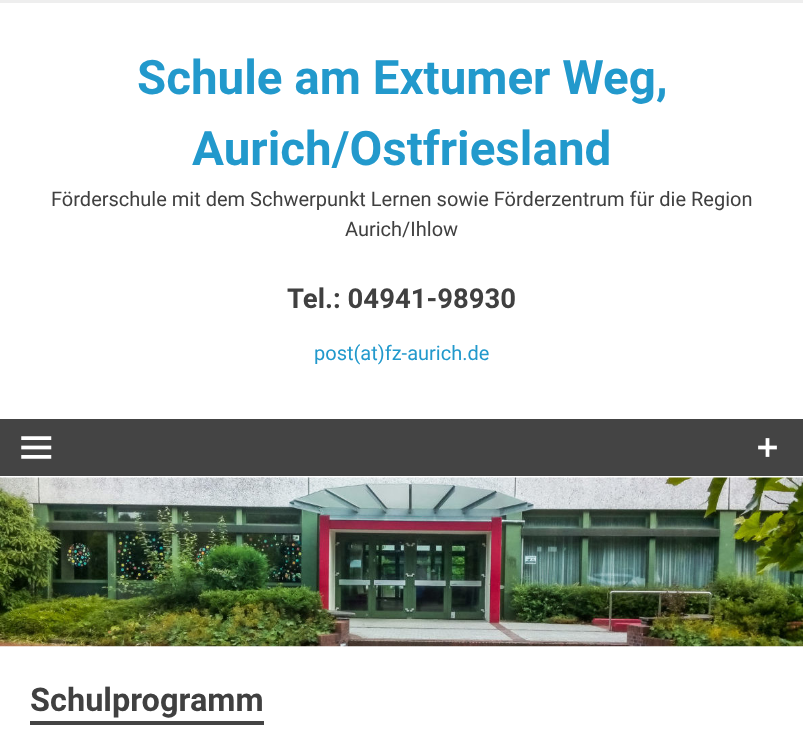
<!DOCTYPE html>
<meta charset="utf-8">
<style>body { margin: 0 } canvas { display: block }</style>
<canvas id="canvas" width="803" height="738"></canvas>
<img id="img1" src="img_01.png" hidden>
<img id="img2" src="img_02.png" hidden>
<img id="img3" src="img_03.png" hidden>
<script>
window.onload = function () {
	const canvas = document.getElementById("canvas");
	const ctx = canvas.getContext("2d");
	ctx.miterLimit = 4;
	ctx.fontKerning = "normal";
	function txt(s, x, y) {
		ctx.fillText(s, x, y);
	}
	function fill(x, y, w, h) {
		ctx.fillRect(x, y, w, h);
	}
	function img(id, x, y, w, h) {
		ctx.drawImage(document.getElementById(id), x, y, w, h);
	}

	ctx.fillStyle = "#FFFFFF";
	fill(0, 0, 803, 738);
	ctx.fillStyle = "#EEEEEE";
	fill(0, 0, 803, 3);
	ctx.fillStyle = "#444444";
	fill(0, 419, 803, 57);
	img("img1", 758, 438, 19, 19);
	img("img2", 21, 436, 31, 23);
	img("img3", 0, 477, 803, 170);
	fill(30, 721, 234, 4);
	ctx.font = "bold 47.5px Roboto";
	ctx.fillStyle = "#2299CC";
	txt("Schule am Extumer Weg,", 137, 94);
	txt("Aurich/Ostfriesland", 192, 165);
	ctx.font = "20px Roboto";
	ctx.fillStyle = "#404040";
	txt("Förderschule mit dem Schwerpunkt Lernen sowie Förderzentrum für die Region", 51, 206);
	txt("Aurich/Ihlow", 345, 236);
	ctx.font = "bold 27.5px Roboto";
	txt("Tel.: 04941-98930", 287, 308);
	ctx.font = "20px Roboto";
	ctx.fillStyle = "#2299CC";
	txt("post(at)fz-aurich.de", 314, 360);
	ctx.font = "bold 32.5px Roboto";
	ctx.fillStyle = "#404040";
	txt("Schulprogramm", 30, 711);
};
</script>
